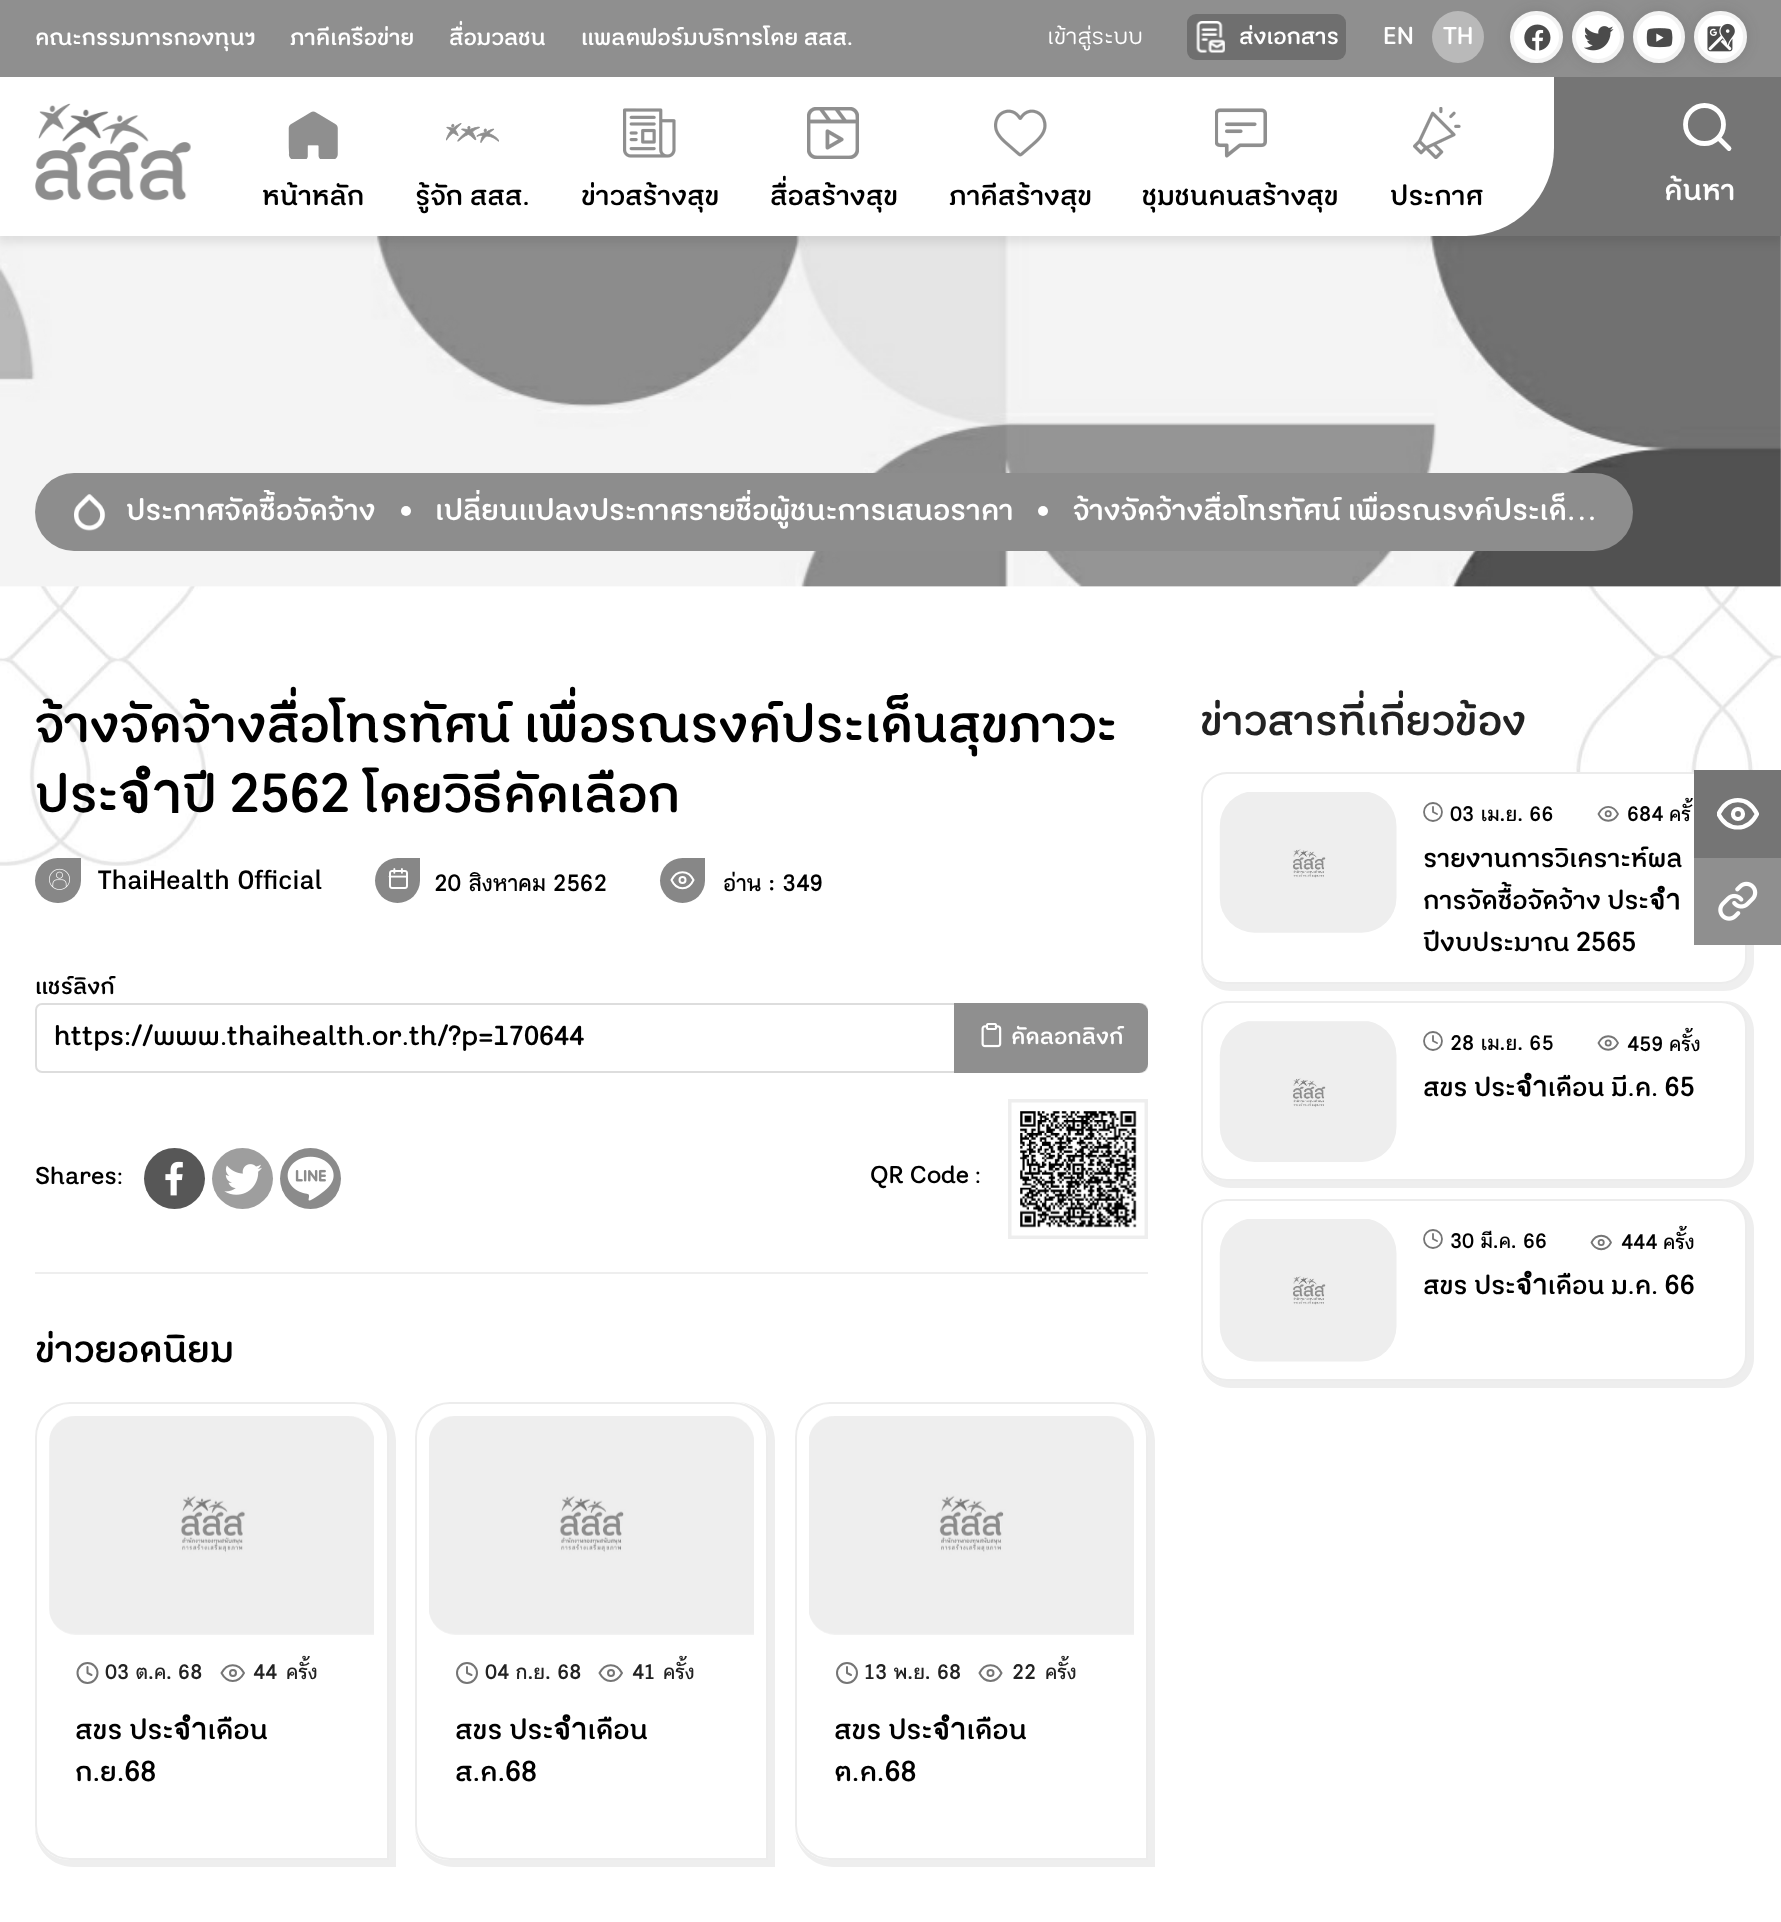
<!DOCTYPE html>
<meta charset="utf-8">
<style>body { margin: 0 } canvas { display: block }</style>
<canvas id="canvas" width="1781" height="1922"></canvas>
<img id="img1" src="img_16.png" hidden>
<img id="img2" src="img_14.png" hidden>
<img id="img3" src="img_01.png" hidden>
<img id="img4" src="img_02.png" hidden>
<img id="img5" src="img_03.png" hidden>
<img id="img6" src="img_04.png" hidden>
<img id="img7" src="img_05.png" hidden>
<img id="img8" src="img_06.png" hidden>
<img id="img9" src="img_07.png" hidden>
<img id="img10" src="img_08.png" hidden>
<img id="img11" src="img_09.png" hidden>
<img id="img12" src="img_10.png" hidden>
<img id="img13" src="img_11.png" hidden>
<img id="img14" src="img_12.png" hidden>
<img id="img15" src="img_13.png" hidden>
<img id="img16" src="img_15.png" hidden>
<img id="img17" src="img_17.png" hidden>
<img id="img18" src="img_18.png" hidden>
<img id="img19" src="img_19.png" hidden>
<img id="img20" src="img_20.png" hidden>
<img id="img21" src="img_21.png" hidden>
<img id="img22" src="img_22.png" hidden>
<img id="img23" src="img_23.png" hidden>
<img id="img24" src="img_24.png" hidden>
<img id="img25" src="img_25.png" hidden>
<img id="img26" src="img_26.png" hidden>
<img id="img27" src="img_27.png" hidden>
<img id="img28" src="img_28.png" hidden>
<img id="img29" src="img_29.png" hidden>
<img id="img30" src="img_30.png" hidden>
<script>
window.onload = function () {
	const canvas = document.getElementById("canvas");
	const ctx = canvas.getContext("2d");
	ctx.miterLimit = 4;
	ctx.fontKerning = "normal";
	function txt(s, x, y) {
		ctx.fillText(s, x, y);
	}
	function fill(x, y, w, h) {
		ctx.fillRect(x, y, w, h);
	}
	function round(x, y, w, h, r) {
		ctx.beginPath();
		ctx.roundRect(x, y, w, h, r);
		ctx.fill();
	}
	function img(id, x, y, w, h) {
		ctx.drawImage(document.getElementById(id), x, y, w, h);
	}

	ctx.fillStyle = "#FFFFFF";
	fill(0, 0, 1781, 1922);
	img("img1", 0, 539, 1781, 327);
	img("img2", 0, 236, 1781, 351);
	ctx.fillStyle = "rgba(0, 0, 0, 0.08)";
	ctx.filter = "blur(4.5px)";
	ctx.beginPath();
	ctx.rect(-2, 4, 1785, 239);
	ctx.fill();
	ctx.filter = "none";
	ctx.fillStyle = "#8F8F8F";
	fill(0, 0, 1781, 77);
	ctx.fillStyle = "#6F6F6F";
	round(1187, 14, 159, 46, 9);
	img("img3", 1196, 21, 29, 32);
	ctx.fillStyle = "#B9B9B9";
	ctx.beginPath();
	ctx.arc(1458, 37, 26, 0, Math.PI * 2);
	ctx.fill();
	ctx.fillStyle = "#757575";
	fill(1467, 77, 314, 159);
	ctx.fillStyle = "#FFFFFF";
	ctx.beginPath();
	ctx.roundRect(191, 77, 1363, 159, [0, 0, 88, 0]);
	ctx.fill();
	ctx.fillStyle = "rgba(50, 50, 50, 0.15)";
	ctx.filter = "blur(7px)";
	ctx.beginPath();
	ctx.roundRect(1510, 11, 53, 52, 26);
	ctx.fill();
	ctx.filter = "none";
	ctx.fillStyle = "#FFFFFF";
	ctx.beginPath();
	ctx.roundRect(1512, 13, 49, 48, 24);
	ctx.fill();
	ctx.strokeStyle = "#F3F3F3";
	ctx.lineWidth = 4;
	ctx.stroke();
	img("img4", 1524, 24, 27, 27);
	ctx.fillStyle = "rgba(50, 50, 50, 0.15)";
	ctx.filter = "blur(7px)";
	ctx.beginPath();
	ctx.roundRect(1572, 11, 52, 52, 26);
	ctx.fill();
	ctx.filter = "none";
	ctx.fillStyle = "#FFFFFF";
	ctx.beginPath();
	ctx.arc(1598, 37, 24, 0, Math.PI * 2);
	ctx.fill();
	ctx.stroke();
	img("img5", 1584, 26, 30, 25);
	ctx.fillStyle = "rgba(50, 50, 50, 0.15)";
	ctx.filter = "blur(7px)";
	ctx.beginPath();
	ctx.roundRect(1633, 11, 52, 52, 26);
	ctx.fill();
	ctx.filter = "none";
	ctx.fillStyle = "#FFFFFF";
	ctx.beginPath();
	ctx.arc(1659, 37, 24, 0, Math.PI * 2);
	ctx.fill();
	ctx.stroke();
	img("img6", 1646, 28, 27, 20);
	ctx.fillStyle = "rgba(50, 50, 50, 0.15)";
	ctx.filter = "blur(7px)";
	ctx.beginPath();
	ctx.roundRect(1694, 11, 53, 52, 26);
	ctx.fill();
	ctx.filter = "none";
	ctx.fillStyle = "#FFFFFF";
	ctx.beginPath();
	ctx.roundRect(1696, 13, 49, 48, 24);
	ctx.fill();
	ctx.stroke();
	img("img7", 1707, 23, 28, 29);
	fill(0, 77, 191, 159);
	img("img8", 35, 103, 156, 98);
	img("img9", 288, 111, 50, 48);
	img("img10", 446, 123, 53, 20);
	img("img11", 623, 108, 53, 50);
	img("img12", 807, 107, 52, 52);
	img("img13", 994, 109, 53, 48);
	img("img14", 1215, 108, 52, 50);
	img("img15", 1413, 107, 48, 52);
	ctx.beginPath();
	ctx.arc(1704.5, 124.5, 19, 0, Math.PI * 2);
	ctx.strokeStyle = "#FFFFFF";
	ctx.lineWidth = 4.8;
	ctx.stroke();
	ctx.beginPath();
	ctx.moveTo(1729, 148.5);
	ctx.lineTo(1718.5, 138);
	ctx.lineCap = "round";
	ctx.lineJoin = "round";
	ctx.stroke();
	ctx.fillStyle = "#8D8D8D";
	round(35, 473, 1598, 78, 39);
	img("img16", 74, 494, 32, 37);
	ctx.fillStyle = "#FFFFFF";
	ctx.beginPath();
	ctx.arc(406, 511, 5, 0, Math.PI * 2);
	ctx.fill();
	ctx.beginPath();
	ctx.arc(1043, 511, 5, 0, Math.PI * 2);
	ctx.fill();
	ctx.fillStyle = "#878787";
	ctx.beginPath();
	ctx.roundRect(35, 858, 46, 45, [22.5, 0, 22.5, 22.5]);
	ctx.fill();
	img("img17", 49, 868, 21, 22);
	ctx.beginPath();
	ctx.roundRect(375, 858, 45, 45, [22.5, 0, 22.5, 22.5]);
	ctx.fill();
	img("img18", 388, 868, 20, 21);
	ctx.beginPath();
	ctx.roundRect(660, 858, 45, 45, [22.5, 0, 22.5, 22.5]);
	ctx.fill();
	ctx.beginPath();
	ctx.moveTo(671.5, 880);
	ctx.bezierCurveTo(676.5, 869.5, 688.5, 869.5, 693.5, 880);
	ctx.bezierCurveTo(688.5, 891, 676.5, 891, 671.5, 880);
	ctx.closePath();
	ctx.lineWidth = 2;
	ctx.stroke();
	ctx.beginPath();
	ctx.arc(682.5, 880, 3, 0, Math.PI * 2);
	ctx.stroke();
	ctx.beginPath();
	ctx.roundRect(36, 1004, 1111, 68, 6);
	ctx.strokeStyle = "#DDDDDD";
	ctx.lineJoin = "miter";
	ctx.stroke();
	ctx.fillStyle = "#8F8F8F";
	ctx.beginPath();
	ctx.roundRect(954, 1003, 194, 70, [0, 9, 9, 0]);
	ctx.fill();
	img("img19", 981, 1023, 21, 25);
	ctx.fillStyle = "#575757";
	ctx.beginPath();
	ctx.arc(174.5, 1178.5, 30.5, 0, Math.PI * 2);
	ctx.fill();
	img("img20", 165, 1161, 18, 35);
	ctx.fillStyle = "#9E9E9E";
	ctx.beginPath();
	ctx.arc(242.5, 1178.5, 30.5, 0, Math.PI * 2);
	ctx.fill();
	img("img21", 224, 1164, 38, 31);
	ctx.fillStyle = "#8B8B8B";
	ctx.beginPath();
	ctx.arc(310.5, 1178.5, 30.5, 0, Math.PI * 2);
	ctx.fill();
	img("img22", 287, 1156, 47, 45);
	ctx.strokeStyle = "#EEEEEE";
	ctx.lineWidth = 4;
	ctx.strokeRect(1010, 1101, 136, 136);
	img("img23", 1011, 1102, 134, 134);
	ctx.fillStyle = "#EEEEEE";
	fill(35, 1272, 1113, 2);
	ctx.beginPath();
	ctx.moveTo(35, 1825);
	ctx.lineTo(35, 1828);
	ctx.bezierCurveTo(35, 1850, 52, 1867, 74, 1867);
	ctx.lineTo(396, 1867);
	ctx.lineTo(396, 1441);
	ctx.bezierCurveTo(396, 1420, 379, 1402, 358, 1402);
	ctx.bezierCurveTo(375, 1404, 388, 1419, 388, 1437);
	ctx.lineTo(388, 1860);
	ctx.lineTo(70, 1860);
	ctx.bezierCurveTo(51, 1860, 35, 1845, 35, 1825);
	ctx.closePath();
	ctx.fill();
	ctx.fillStyle = "#FFFFFF";
	ctx.beginPath();
	ctx.roundRect(36, 1403, 352, 456, [34, 34, 0, 34]);
	ctx.fill();
	ctx.strokeStyle = "#ECECEC";
	ctx.lineWidth = 2;
	ctx.stroke();
	img("img24", 49, 1416, 325, 219);
	ctx.beginPath();
	ctx.arc(87.5, 1673, 10, 0, Math.PI * 2);
	ctx.strokeStyle = "#757575";
	ctx.stroke();
	ctx.beginPath();
	ctx.moveTo(87.5, 1667);
	ctx.lineTo(87.5, 1673);
	ctx.lineTo(91.5, 1675);
	ctx.lineJoin = "round";
	ctx.stroke();
	ctx.beginPath();
	ctx.moveTo(221.5, 1673);
	ctx.bezierCurveTo(227, 1662.5, 238.5, 1662.5, 244, 1673);
	ctx.bezierCurveTo(238.5, 1683.5, 227, 1683.5, 221.5, 1673);
	ctx.closePath();
	ctx.stroke();
	ctx.beginPath();
	ctx.arc(233, 1673, 3, 0, Math.PI * 2);
	ctx.stroke();
	ctx.fillStyle = "#EEEEEE";
	ctx.beginPath();
	ctx.moveTo(415, 1830);
	ctx.bezierCurveTo(416, 1850, 433, 1867, 454, 1867);
	ctx.lineTo(775, 1867);
	ctx.lineTo(775, 1441);
	ctx.bezierCurveTo(775, 1420, 758, 1403, 738, 1402);
	ctx.bezierCurveTo(755, 1404, 768, 1419, 768, 1437);
	ctx.lineTo(768, 1860);
	ctx.lineTo(450, 1860);
	ctx.bezierCurveTo(432, 1860, 417, 1847, 415, 1830);
	ctx.closePath();
	ctx.fill();
	ctx.fillStyle = "#FFFFFF";
	ctx.beginPath();
	ctx.roundRect(416, 1403, 351, 456, [34, 34, 0, 34]);
	ctx.fill();
	ctx.strokeStyle = "#ECECEC";
	ctx.lineJoin = "miter";
	ctx.stroke();
	img("img25", 429, 1416, 325, 219);
	ctx.beginPath();
	ctx.arc(467, 1673, 10, 0, Math.PI * 2);
	ctx.strokeStyle = "#757575";
	ctx.stroke();
	ctx.beginPath();
	ctx.moveTo(467, 1667);
	ctx.lineTo(467, 1673);
	ctx.lineTo(471.5, 1675);
	ctx.lineJoin = "round";
	ctx.stroke();
	ctx.beginPath();
	ctx.moveTo(599.5, 1673);
	ctx.bezierCurveTo(605, 1662.5, 616.5, 1662.5, 622, 1673);
	ctx.bezierCurveTo(616.5, 1683.5, 605, 1683.5, 599.5, 1673);
	ctx.closePath();
	ctx.stroke();
	ctx.beginPath();
	ctx.arc(611, 1673, 3, 0, Math.PI * 2);
	ctx.stroke();
	ctx.fillStyle = "#EEEEEE";
	ctx.beginPath();
	ctx.moveTo(795, 1833);
	ctx.bezierCurveTo(798, 1852, 814, 1867, 834, 1867);
	ctx.lineTo(1155, 1867);
	ctx.lineTo(1155, 1441);
	ctx.bezierCurveTo(1155, 1420, 1138, 1403, 1117, 1402);
	ctx.bezierCurveTo(1135, 1404, 1148, 1419, 1148, 1437);
	ctx.lineTo(1148, 1860);
	ctx.lineTo(830, 1860);
	ctx.bezierCurveTo(813, 1860, 799, 1848, 795, 1833);
	ctx.closePath();
	ctx.fill();
	ctx.fillStyle = "#FFFFFF";
	ctx.beginPath();
	ctx.roundRect(796, 1403, 351, 456, [34, 34, 0, 34]);
	ctx.fill();
	ctx.strokeStyle = "#ECECEC";
	ctx.lineJoin = "miter";
	ctx.stroke();
	img("img26", 809, 1416, 325, 219);
	ctx.beginPath();
	ctx.arc(847, 1673, 10, 0, Math.PI * 2);
	ctx.strokeStyle = "#757575";
	ctx.stroke();
	ctx.beginPath();
	ctx.moveTo(847, 1667);
	ctx.lineTo(847, 1673);
	ctx.lineTo(851, 1675);
	ctx.lineJoin = "round";
	ctx.stroke();
	ctx.beginPath();
	ctx.moveTo(979.5, 1673);
	ctx.bezierCurveTo(984.5, 1662.5, 996.5, 1662.5, 1001.5, 1673);
	ctx.bezierCurveTo(996.5, 1683.5, 984.5, 1683.5, 979.5, 1673);
	ctx.closePath();
	ctx.stroke();
	ctx.beginPath();
	ctx.arc(990.5, 1673, 3, 0, Math.PI * 2);
	ctx.stroke();
	ctx.fillStyle = "rgba(226, 226, 226, 0.57)";
	ctx.beginPath();
	ctx.moveTo(1201, 963);
	ctx.bezierCurveTo(1202, 978, 1215, 991, 1231, 991);
	ctx.lineTo(1724, 991);
	ctx.bezierCurveTo(1741, 991, 1754, 978, 1754, 961);
	ctx.lineTo(1754, 802);
	ctx.bezierCurveTo(1754, 785, 1741, 772, 1724, 772);
	ctx.bezierCurveTo(1737, 774, 1746, 785, 1746, 798);
	ctx.lineTo(1746, 957);
	ctx.bezierCurveTo(1746, 972, 1735, 984, 1720, 984);
	ctx.lineTo(1227, 984);
	ctx.bezierCurveTo(1214, 984, 1204, 975, 1201, 963);
	ctx.closePath();
	ctx.fill();
	ctx.fillStyle = "#FFFFFF";
	ctx.beginPath();
	ctx.roundRect(1202, 773, 544, 210, 25);
	ctx.fill();
	ctx.strokeStyle = "#ECECEC";
	ctx.lineJoin = "miter";
	ctx.stroke();
	img("img27", 1219, 792, 178, 141);
	ctx.beginPath();
	ctx.arc(1433, 812, 9, 0, Math.PI * 2);
	ctx.strokeStyle = "#757575";
	ctx.lineWidth = 1.8;
	ctx.stroke();
	ctx.beginPath();
	ctx.moveTo(1433, 807);
	ctx.lineTo(1433, 812);
	ctx.lineTo(1437, 814);
	ctx.lineJoin = "round";
	ctx.stroke();
	ctx.beginPath();
	ctx.moveTo(1598.5, 814);
	ctx.bezierCurveTo(1603, 804.5, 1613.5, 804.5, 1618, 814);
	ctx.bezierCurveTo(1613.5, 823, 1603, 823, 1598.5, 814);
	ctx.closePath();
	ctx.stroke();
	ctx.beginPath();
	ctx.arc(1608.2, 813.8, 2.6, 0, Math.PI * 2);
	ctx.stroke();
	ctx.fillStyle = "#EEEEEE";
	ctx.beginPath();
	ctx.moveTo(1201, 1161);
	ctx.bezierCurveTo(1202, 1176, 1215, 1188, 1231, 1188);
	ctx.lineTo(1724, 1188);
	ctx.bezierCurveTo(1741, 1188, 1754, 1175, 1754, 1158);
	ctx.lineTo(1754, 1031);
	ctx.bezierCurveTo(1754, 1014, 1741, 1001, 1724, 1001);
	ctx.lineTo(1720, 1001);
	ctx.bezierCurveTo(1735, 1001, 1746, 1013, 1746, 1027);
	ctx.lineTo(1746, 1155);
	ctx.bezierCurveTo(1746, 1169, 1735, 1181, 1720, 1181);
	ctx.lineTo(1227, 1181);
	ctx.bezierCurveTo(1214, 1181, 1204, 1172, 1201, 1161);
	ctx.closePath();
	ctx.fill();
	ctx.fillStyle = "#FFFFFF";
	ctx.beginPath();
	ctx.roundRect(1202, 1002, 544, 178, 25);
	ctx.fill();
	ctx.strokeStyle = "#ECECEC";
	ctx.lineWidth = 2;
	ctx.lineJoin = "miter";
	ctx.stroke();
	img("img28", 1219, 1021, 178, 141);
	ctx.beginPath();
	ctx.arc(1433, 1041, 9, 0, Math.PI * 2);
	ctx.strokeStyle = "#757575";
	ctx.lineWidth = 1.8;
	ctx.stroke();
	ctx.beginPath();
	ctx.moveTo(1433, 1036);
	ctx.lineTo(1433, 1041);
	ctx.lineTo(1437, 1043);
	ctx.lineJoin = "round";
	ctx.stroke();
	ctx.beginPath();
	ctx.moveTo(1598.5, 1043);
	ctx.bezierCurveTo(1603, 1034, 1613.5, 1034, 1618, 1043);
	ctx.bezierCurveTo(1613.5, 1052, 1603, 1052, 1598.5, 1043);
	ctx.closePath();
	ctx.stroke();
	ctx.beginPath();
	ctx.arc(1608.2, 1043, 2.6, 0, Math.PI * 2);
	ctx.stroke();
	ctx.fillStyle = "#EEEEEE";
	ctx.beginPath();
	ctx.moveTo(1201, 1360);
	ctx.bezierCurveTo(1202, 1376, 1215, 1388, 1231, 1388);
	ctx.lineTo(1724, 1388);
	ctx.bezierCurveTo(1741, 1388, 1754, 1375, 1754, 1358);
	ctx.lineTo(1754, 1229);
	ctx.bezierCurveTo(1754, 1212, 1741, 1199, 1724, 1199);
	ctx.bezierCurveTo(1737, 1201, 1746, 1212, 1746, 1225);
	ctx.lineTo(1746, 1354);
	ctx.bezierCurveTo(1746, 1369, 1735, 1381, 1720, 1381);
	ctx.lineTo(1227, 1381);
	ctx.bezierCurveTo(1214, 1381, 1204, 1372, 1201, 1360);
	ctx.closePath();
	ctx.fill();
	ctx.fillStyle = "#FFFFFF";
	ctx.beginPath();
	ctx.roundRect(1202, 1200, 544, 180, 25);
	ctx.fill();
	ctx.strokeStyle = "#ECECEC";
	ctx.lineWidth = 2;
	ctx.lineJoin = "miter";
	ctx.stroke();
	img("img29", 1219, 1219, 178, 143);
	ctx.beginPath();
	ctx.arc(1433, 1239, 9, 0, Math.PI * 2);
	ctx.strokeStyle = "#757575";
	ctx.lineWidth = 1.8;
	ctx.stroke();
	ctx.beginPath();
	ctx.moveTo(1433, 1234);
	ctx.lineTo(1433, 1239);
	ctx.lineTo(1437, 1241);
	ctx.lineJoin = "round";
	ctx.stroke();
	ctx.beginPath();
	ctx.moveTo(1591.5, 1242.5);
	ctx.bezierCurveTo(1596, 1233.5, 1606.5, 1233.5, 1611, 1242.5);
	ctx.bezierCurveTo(1606.5, 1251.5, 1596, 1251.5, 1591.5, 1242.5);
	ctx.closePath();
	ctx.stroke();
	ctx.beginPath();
	ctx.arc(1601.2, 1242.5, 2.6, 0, Math.PI * 2);
	ctx.stroke();
	ctx.fillStyle = "#8F8F8F";
	fill(1694, 858, 87, 87);
	ctx.fillStyle = "#757575";
	fill(1694, 770, 87, 88);
	ctx.save();
	ctx.beginPath();
	ctx.rect(1717, 793, 42, 42);
	ctx.clip();
	ctx.beginPath();
	ctx.moveTo(1718.5, 814);
	ctx.bezierCurveTo(1727.5, 795.5, 1748, 795.5, 1757, 814);
	ctx.bezierCurveTo(1748, 832, 1727.5, 832, 1718.5, 814);
	ctx.closePath();
	ctx.strokeStyle = "#FFFFFF";
	ctx.lineWidth = 4.2;
	ctx.stroke();
	ctx.restore();
	ctx.beginPath();
	ctx.arc(1738, 814, 5, 0, Math.PI * 2);
	ctx.strokeStyle = "#FFFFFF";
	ctx.lineWidth = 4.2;
	ctx.stroke();
	img("img30", 1718, 881, 40, 40);
	ctx.font = "bold 24.5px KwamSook";
	ctx.fillStyle = "#FFFFFF";
	txt("คณะกรรมการกองทุนฯ", 35, 45);
	txt("ภาคีเครือข่าย", 290, 45);
	txt("สื่อมวลชน", 449, 45);
	txt("แพลตฟอร์มบริการโดย สสส.", 581, 45);
	ctx.font = "24.5px KwamSook";
	txt("เข้าสู่ระบบ", 1047, 44);
	ctx.font = "bold 24.5px KwamSook";
	txt("ส่งเอกสาร", 1239, 44);
	txt("EN", 1383, 44);
	txt("TH", 1443, 44);
	ctx.font = "bold 29.75px KwamSook";
	ctx.fillStyle = "#000000";
	txt("หน้าหลัก", 262, 205);
	txt("รู้จัก สสส.", 415, 205);
	txt("ข่าวสร้างสุข", 581, 205);
	txt("สื่อสร้างสุข", 770, 205);
	txt("ภาคีสร้างสุข", 949, 205);
	txt("ชุมชนคนสร้างสุข", 1142, 205);
	txt("ประกาศ", 1390, 205);
	ctx.font = "bold 31.5px KwamSook";
	ctx.fillStyle = "#FFFFFF";
	txt("ค้นหา", 1664, 200);
	ctx.save();
	ctx.beginPath();
	ctx.rect(126, 490, 303, 42);
	ctx.clip();
	txt("ประกาศจัดซื้อจัดจ้าง", 126, 520);
	ctx.restore();
	ctx.save();
	ctx.beginPath();
	ctx.rect(436, 490, 630, 42);
	ctx.clip();
	txt("เปลี่ยนแปลงประกาศรายชื่อผู้ชนะการเสนอราคา", 435, 520);
	ctx.restore();
	ctx.save();
	ctx.beginPath();
	ctx.rect(1073, 492, 525, 40);
	ctx.clip();
	txt("จ้างจัดจ้างสื่อโทรทัศน์ เพื่อรณรงค์ประเด็…", 1073, 520);
	ctx.restore();
	ctx.font = "bold 56px KwamSook";
	ctx.fillStyle = "#000000";
	txt("จ้างจัดจ้างสื่อโทรทัศน์ เพื่อรณรงค์ประเด็นสุขภาวะ", 35, 742);
	txt("ประจำปี 2562 โดยวิธีคัดเลือก", 35, 812);
	ctx.font = "bold 35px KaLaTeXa";
	txt("ThaiHealth Official", 98, 889);
	ctx.font = "bold 31.5px KaLaTeXa";
	txt("20 สิงหาคม 2562", 434, 891);
	txt("อ่าน : 349", 723, 891);
	ctx.font = "bold 24.5px KwamSook";
	txt("แชร์ลิงก์", 35, 994);
	ctx.font = "bold 28px KwamSook";
	txt("https://www.thaihealth.or.th/?p=170644", 54, 1045);
	ctx.font = "bold 24.5px KwamSook";
	ctx.fillStyle = "#FFFFFF";
	txt("คัดลอกลิงก์", 1011, 1044);
	ctx.fillStyle = "#000000";
	txt("Shares:", 35, 1184);
	txt("QR Code :", 870, 1183);
	ctx.font = "bold 40.25px KwamSook";
	txt("ข่าวยอดนิยม", 35, 1362);
	ctx.font = "bold 28px KaLaTeXa";
	ctx.fillStyle = "#222222";
	txt("03 ต.ค. 68", 105, 1679);
	txt("44", 253, 1679);
	txt("ครั้ง", 286, 1679);
	ctx.font = "bold 29.75px KwamSook";
	ctx.fillStyle = "#000000";
	txt("สขร ประจำเดือน", 75, 1739);
	txt("ก.ย.68", 75, 1781);
	ctx.font = "bold 28px KaLaTeXa";
	ctx.fillStyle = "#222222";
	txt("04 ก.ย. 68", 485, 1679);
	txt("41", 632, 1679);
	txt("ครั้ง", 663, 1679);
	ctx.font = "bold 29.75px KwamSook";
	ctx.fillStyle = "#000000";
	txt("สขร ประจำเดือน", 455, 1739);
	txt("ส.ค.68", 455, 1781);
	ctx.font = "bold 28px KaLaTeXa";
	ctx.fillStyle = "#222222";
	txt("13 พ.ย. 68", 864, 1679);
	txt("22", 1012, 1679);
	txt("ครั้ง", 1045, 1679);
	ctx.font = "bold 29.75px KwamSook";
	ctx.fillStyle = "#000000";
	txt("สขร ประจำเดือน", 834, 1739);
	txt("ต.ค.68", 834, 1781);
	ctx.font = "bold 45.5px KwamSook";
	ctx.fillStyle = "#222222";
	txt("ข่าวสารที่เกี่ยวข้อง", 1200, 735);
	ctx.font = "bold 28px KaLaTeXa";
	ctx.fillStyle = "#000000";
	txt("03 เม.ย. 66", 1450, 821);
	txt("684", 1627, 821);
	txt("ครั้", 1669, 821);
	ctx.font = "bold 28px KwamSook";
	txt("รายงานการวิเคราะห์ผล", 1423, 867);
	txt("การจัดซื้อจัดจ้าง ประจำ", 1423, 909);
	ctx.save();
	ctx.beginPath();
	ctx.rect(1423, 838, 299, 126);
	ctx.clip();
	txt("ปีงบประมาณ 2565", 1423, 951);
	ctx.restore();
	ctx.font = "bold 28px KaLaTeXa";
	txt("28 เม.ย. 65", 1450, 1050);
	txt("459", 1627, 1051);
	txt("ครั้ง", 1669, 1051);
	ctx.font = "bold 28px KwamSook";
	txt("สขร ประจำเดือน มี.ค. 65", 1423, 1096);
	ctx.font = "bold 28px KaLaTeXa";
	txt("30 มี.ค. 66", 1450, 1248);
	txt("444", 1621, 1249);
	txt("ครั้ง", 1663, 1249);
	ctx.font = "bold 28px KwamSook";
	txt("สขร ประจำเดือน ม.ค. 66", 1423, 1294);
};
</script>
